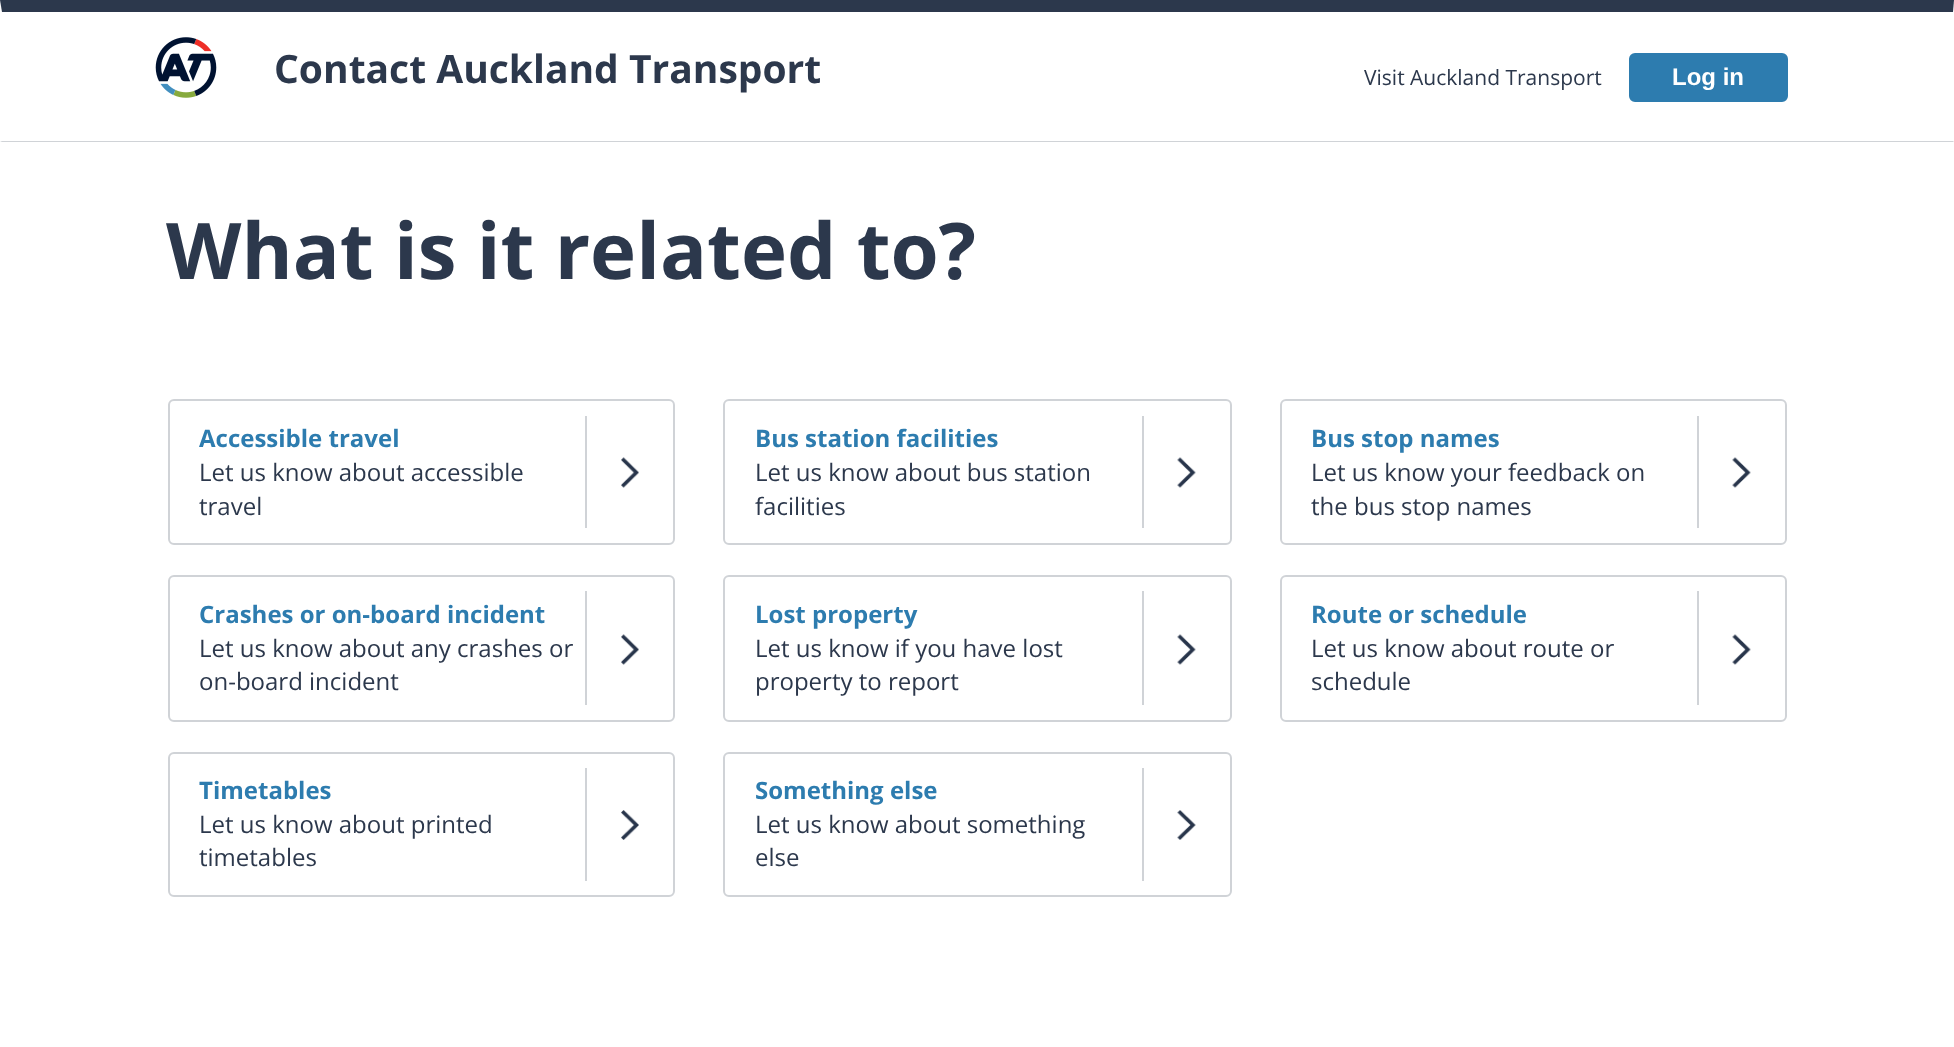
<!DOCTYPE html>
<meta charset="utf-8">
<style>body { margin: 0 } canvas { display: block }</style>
<canvas id="canvas" width="1954" height="1047"></canvas>
<img id="img1" src="img_01.png" hidden>
<img id="img2" src="img_02.png" hidden>
<img id="img3" src="img_03.png" hidden>
<img id="img4" src="img_04.png" hidden>
<img id="img5" src="img_05.png" hidden>
<script>
window.onload = function () {
	const canvas = document.getElementById("canvas");
	const ctx = canvas.getContext("2d");
	ctx.miterLimit = 4;
	ctx.fontKerning = "normal";
	function txt(s, x, y) {
		ctx.fillText(s, x, y);
	}
	function fill(x, y, w, h) {
		ctx.fillRect(x, y, w, h);
	}
	function img(id, x, y, w, h) {
		ctx.drawImage(document.getElementById(id), x, y, w, h);
	}

	ctx.fillStyle = "#FFFFFF";
	fill(0, 0, 1954, 1047);
	ctx.fillStyle = "#2C384C";
	ctx.beginPath();
	ctx.moveTo(0, 0);
	ctx.lineTo(1954, 0);
	ctx.lineTo(1953, 12);
	ctx.lineTo(2, 12);
	ctx.closePath();
	ctx.fill();
	ctx.fillStyle = "#D0D3D7";
	ctx.beginPath();
	ctx.moveTo(1954, 142);
	ctx.lineTo(0, 142);
	ctx.lineTo(2, 141);
	ctx.lineTo(1953, 141);
	ctx.closePath();
	ctx.fill();
	img("img1", 155, 37, 62, 61);
	ctx.fillStyle = "#2D7CAF";
	ctx.beginPath();
	ctx.roundRect(1630.5, 54.5, 156, 46, 4.5);
	ctx.fill();
	ctx.strokeStyle = "#2D7CAF";
	ctx.lineWidth = 3;
	ctx.stroke();
	ctx.beginPath();
	ctx.roundRect(169, 400, 505, 144, 5);
	ctx.strokeStyle = "#D0D3D7";
	ctx.lineWidth = 2;
	ctx.stroke();
	ctx.fillStyle = "#D0D3D7";
	fill(585, 416, 2, 112);
	img("img2", 621, 457, 18, 31);
	ctx.beginPath();
	ctx.roundRect(724, 400, 507, 144, 5);
	ctx.stroke();
	fill(1142, 416, 2, 112);
	img("img3", 1177, 457, 19, 31);
	ctx.beginPath();
	ctx.roundRect(1281, 400, 505, 144, 5);
	ctx.stroke();
	fill(1697, 416, 2, 112);
	img("img3", 1732, 457, 19, 31);
	ctx.beginPath();
	ctx.roundRect(169, 576, 505, 145, 5);
	ctx.stroke();
	fill(585, 591, 2, 114);
	img("img2", 621, 634, 18, 31);
	ctx.beginPath();
	ctx.roundRect(724, 576, 507, 145, 5);
	ctx.stroke();
	fill(1142, 591, 2, 114);
	img("img3", 1177, 634, 19, 31);
	ctx.beginPath();
	ctx.roundRect(1281, 576, 505, 145, 5);
	ctx.stroke();
	fill(1697, 591, 2, 114);
	img("img3", 1732, 634, 19, 31);
	ctx.beginPath();
	ctx.roundRect(169, 753, 505, 143, 5);
	ctx.stroke();
	fill(585, 768, 2, 113);
	img("img4", 621, 810, 18, 30);
	ctx.beginPath();
	ctx.roundRect(724, 753, 507, 143, 5);
	ctx.stroke();
	fill(1142, 768, 2, 113);
	img("img5", 1177, 810, 19, 30);
	ctx.font = "bold 39px Open Sans";
	ctx.fillStyle = "#2C384C";
	txt("Contact Auckland Transport", 274, 83);
	ctx.font = "21px Open Sans";
	txt("Visit Auckland Transport", 1364, 85);
	ctx.font = "bold 24px Liberation Sans";
	ctx.fillStyle = "#FFFFFF";
	txt("Log in", 1672, 85);
	ctx.font = "bold 78px Open Sans";
	ctx.fillStyle = "#2C384C";
	txt("What is it related to?", 166, 279);
	ctx.font = "bold 24px Open Sans";
	ctx.fillStyle = "#2D7CAF";
	txt("Accessible travel", 199, 447);
	ctx.font = "24px Open Sans";
	ctx.fillStyle = "#2C384C";
	txt("Let us know about accessible", 199, 481);
	txt("travel", 199, 515);
	ctx.font = "bold 24px Open Sans";
	ctx.fillStyle = "#2D7CAF";
	txt("Bus station facilities", 755, 447);
	ctx.font = "24px Open Sans";
	ctx.fillStyle = "#2C384C";
	txt("Let us know about bus station", 755, 481);
	txt("facilities", 755, 515);
	ctx.font = "bold 24px Open Sans";
	ctx.fillStyle = "#2D7CAF";
	txt("Bus stop names", 1311, 447);
	ctx.font = "24px Open Sans";
	ctx.fillStyle = "#2C384C";
	txt("Let us know your feedback on", 1311, 481);
	txt("the bus stop names", 1311, 515);
	ctx.font = "bold 24px Open Sans";
	ctx.fillStyle = "#2D7CAF";
	txt("Crashes or on-board incident", 199, 623);
	ctx.font = "24px Open Sans";
	ctx.fillStyle = "#2C384C";
	txt("Let us know about any crashes or", 199, 657);
	txt("on-board incident", 199, 690);
	ctx.font = "bold 24px Open Sans";
	ctx.fillStyle = "#2D7CAF";
	txt("Lost property", 755, 623);
	ctx.font = "24px Open Sans";
	ctx.fillStyle = "#2C384C";
	txt("Let us know if you have lost", 755, 657);
	txt("property to report", 755, 690);
	ctx.font = "bold 24px Open Sans";
	ctx.fillStyle = "#2D7CAF";
	txt("Route or schedule", 1311, 623);
	ctx.font = "24px Open Sans";
	ctx.fillStyle = "#2C384C";
	txt("Let us know about route or", 1311, 657);
	txt("schedule", 1311, 690);
	ctx.font = "bold 24px Open Sans";
	ctx.fillStyle = "#2D7CAF";
	txt("Timetables", 199, 799);
	ctx.font = "24px Open Sans";
	ctx.fillStyle = "#2C384C";
	txt("Let us know about printed", 199, 833);
	txt("timetables", 199, 866);
	ctx.font = "bold 24px Open Sans";
	ctx.fillStyle = "#2D7CAF";
	txt("Something else", 755, 799);
	ctx.font = "24px Open Sans";
	ctx.fillStyle = "#2C384C";
	txt("Let us know about something", 755, 833);
	txt("else", 755, 866);
};
</script>
